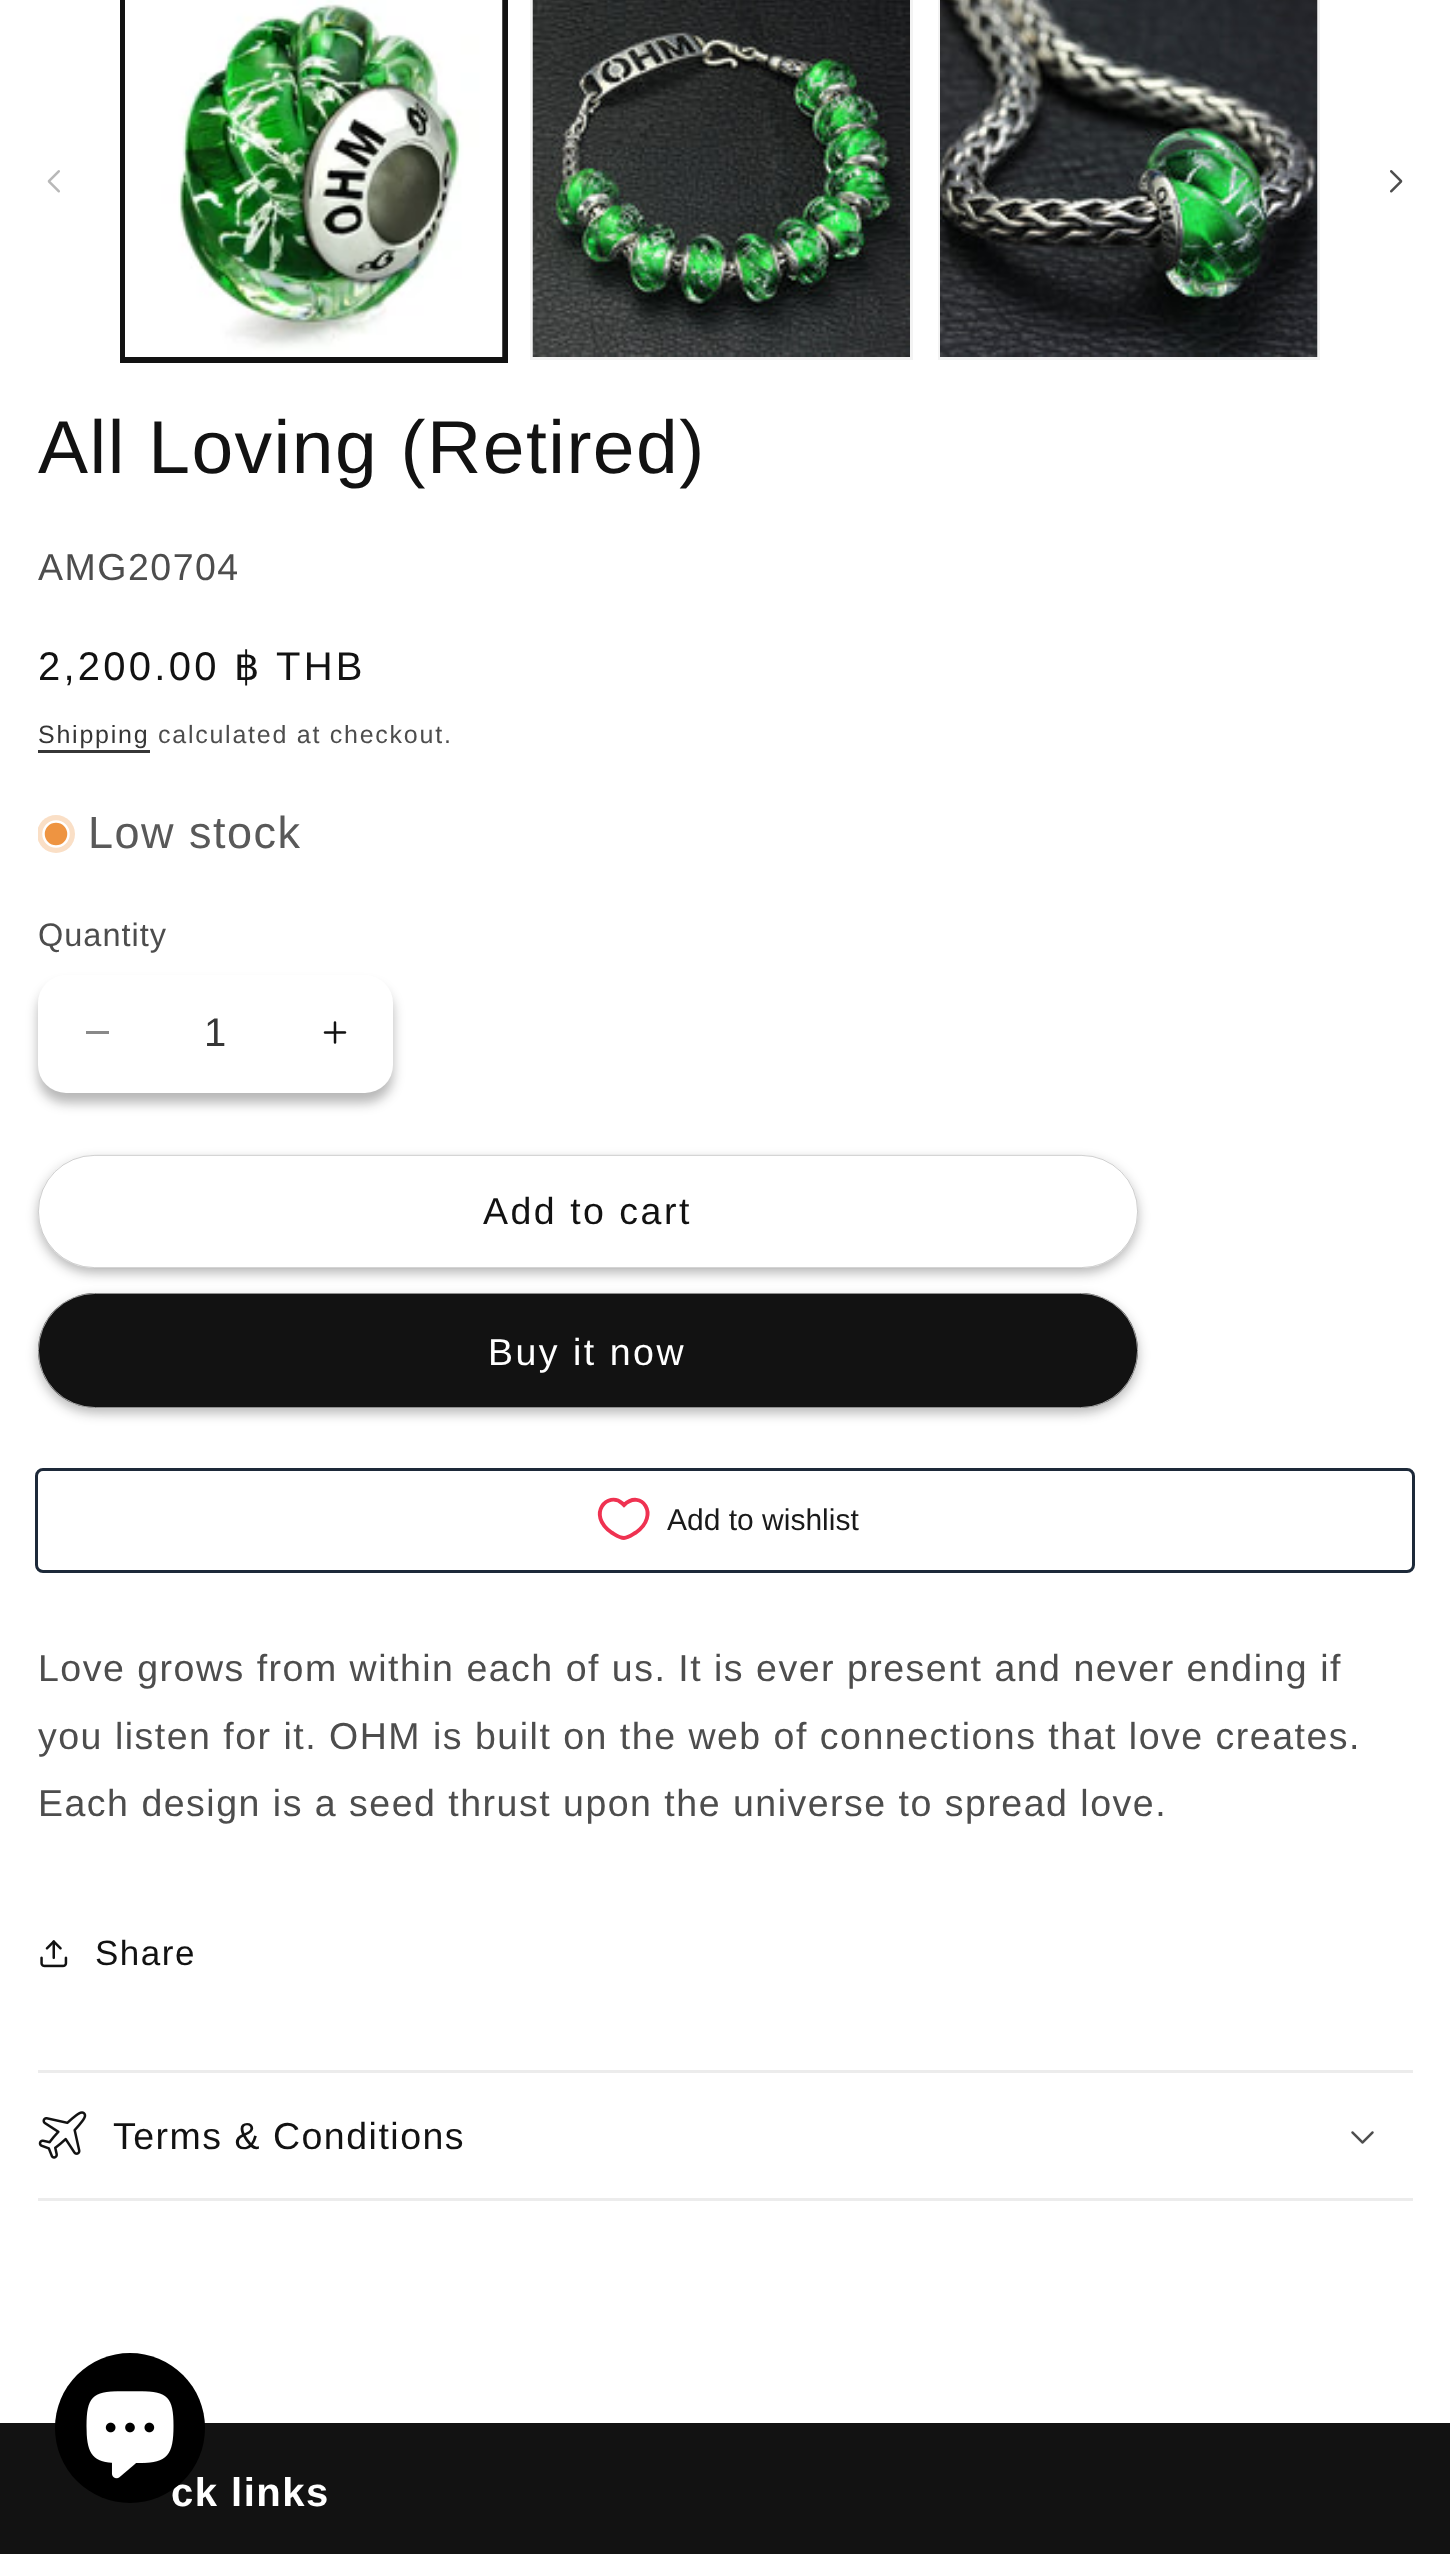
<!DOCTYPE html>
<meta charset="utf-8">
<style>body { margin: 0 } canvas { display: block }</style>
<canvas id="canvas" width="1450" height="2554"></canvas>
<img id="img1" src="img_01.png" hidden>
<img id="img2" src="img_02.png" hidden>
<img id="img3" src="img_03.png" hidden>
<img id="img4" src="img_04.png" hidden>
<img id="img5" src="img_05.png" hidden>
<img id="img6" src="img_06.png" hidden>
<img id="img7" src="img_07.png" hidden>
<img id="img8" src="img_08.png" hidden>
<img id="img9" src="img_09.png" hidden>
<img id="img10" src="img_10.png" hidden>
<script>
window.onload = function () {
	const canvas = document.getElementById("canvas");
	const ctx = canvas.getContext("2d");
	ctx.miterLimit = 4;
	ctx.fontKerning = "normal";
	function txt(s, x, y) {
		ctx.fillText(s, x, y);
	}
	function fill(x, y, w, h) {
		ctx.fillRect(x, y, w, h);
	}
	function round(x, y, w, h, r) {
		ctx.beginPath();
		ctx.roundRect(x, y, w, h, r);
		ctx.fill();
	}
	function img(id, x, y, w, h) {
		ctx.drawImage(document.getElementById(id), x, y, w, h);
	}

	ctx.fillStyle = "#FFFFFF";
	fill(0, 0, 1450, 2554);
	img("img1", 47, 170, 13, 23);
	ctx.strokeStyle = "#121212";
	ctx.lineWidth = 3;
	ctx.strokeRect(121.5, -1.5, 385, 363);
	ctx.strokeRect(124.5, -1.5, 379, 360);
	img("img2", 125, 0, 378, 357);
	ctx.strokeStyle = "#F3F3F3";
	ctx.strokeRect(531.5, -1.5, 380, 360);
	img("img3", 532, 0, 378, 357);
	ctx.strokeRect(939.5, -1.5, 379, 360);
	img("img4", 940, 0, 378, 357);
	img("img5", 1390, 170, 13, 23);
	ctx.fillStyle = "#363636";
	fill(38, 750, 112, 3);
	ctx.save();
	ctx.beginPath();
	ctx.rect(38, 815, 37, 38);
	ctx.clip();
	ctx.fillStyle = "#FADFC6";
	ctx.beginPath();
	ctx.arc(56, 834, 19, 0, Math.PI * 2);
	ctx.fill();
	ctx.restore();
	ctx.fillStyle = "#EE9441";
	ctx.beginPath();
	ctx.arc(56, 834, 12.5, 0, Math.PI * 2);
	ctx.fill();
	ctx.strokeStyle = "#FFFFFF";
	ctx.lineWidth = 2.5;
	ctx.stroke();
	ctx.fillStyle = "rgba(18, 18, 18, 0.3)";
	ctx.filter = "blur(6px)";
	ctx.beginPath();
	ctx.roundRect(38, 985, 355, 118, 28);
	ctx.fill();
	ctx.filter = "none";
	ctx.fillStyle = "#FFFFFF";
	round(38, 975, 355, 118, 28);
	ctx.fillStyle = "#898989";
	fill(86, 1031, 23, 3);
	img("img6", 323, 1021, 24, 23);
	ctx.fillStyle = "rgba(18, 18, 18, 0.3)";
	ctx.filter = "blur(6px)";
	ctx.beginPath();
	ctx.roundRect(38, 1160, 1100, 113, 56.5);
	ctx.fill();
	ctx.filter = "none";
	ctx.fillStyle = "#FFFFFF";
	round(38, 1155, 1100, 113, 56.5);
	ctx.beginPath();
	ctx.roundRect(38.4, 1155.4, 1099.2, 112.2, 56.1);
	ctx.strokeStyle = "rgba(18, 18, 18, 0.25)";
	ctx.lineWidth = 0.8;
	ctx.stroke();
	ctx.fillStyle = "rgba(18, 18, 18, 0.3)";
	ctx.filter = "blur(6px)";
	ctx.beginPath();
	ctx.roundRect(38, 1298, 1100, 115, 57.5);
	ctx.fill();
	ctx.filter = "none";
	ctx.fillStyle = "#121212";
	round(38, 1293, 1100, 115, 57.5);
	ctx.beginPath();
	ctx.roundRect(38.4, 1293.4, 1099.2, 114.2, 57.1);
	ctx.strokeStyle = "rgba(255, 255, 255, 0.75)";
	ctx.stroke();
	ctx.beginPath();
	ctx.roundRect(36.5, 1469.5, 1377, 102, 6.5);
	ctx.strokeStyle = "#1D2939";
	ctx.lineWidth = 3;
	ctx.stroke();
	ctx.beginPath();
	ctx.moveTo(622.5, 1503.5);
	ctx.lineTo(624, 1505);
	ctx.bezierCurveTo(641, 1488.5, 660.5, 1515, 636, 1532.5);
	ctx.bezierCurveTo(632.5, 1534.5, 628, 1538, 624, 1538);
	ctx.bezierCurveTo(619.5, 1538, 615, 1534.5, 611.5, 1532.5);
	ctx.bezierCurveTo(586, 1514.5, 608, 1490, 622.5, 1503.5);
	ctx.closePath();
	ctx.strokeStyle = "#EF3251";
	ctx.lineWidth = 3.9;
	ctx.stroke();
	img("img7", 40, 1940, 28, 28);
	ctx.fillStyle = "#ECECEC";
	fill(38, 2070, 1375, 3);
	fill(38, 2198, 1375, 3);
	img("img8", 38, 2111, 49, 48);
	img("img9", 1351, 2131, 23, 13);
	ctx.fillStyle = "#121212";
	fill(0, 2423, 1450, 131);
	ctx.letterSpacing = "1.5px";
	ctx.font = "75px Liberation Sans";
	txt("All Loving (Retired)", 38, 473);
	ctx.font = "37.5px Liberation Sans";
	ctx.fillStyle = "#4D4D4D";
	txt("AMG20704", 38, 580);
	ctx.letterSpacing = "3.25px";
	ctx.font = "40px Liberation Sans";
	ctx.fillStyle = "#121212";
	txt("2,200.00", 38, 680);
	ctx.font = "40px DejaVu Sans";
	txt("฿", 234, 680);
	ctx.font = "40px Liberation Sans";
	txt("THB", 276, 680);
	ctx.letterSpacing = "1.75px";
	ctx.font = "25px Liberation Sans";
	ctx.fillStyle = "#363636";
	txt("Shipping", 38, 743);
	ctx.fillStyle = "#4D4D4D";
	txt("calculated at checkout.", 158, 743);
	ctx.letterSpacing = "1.5px";
	ctx.font = "45px Liberation Sans";
	ctx.fillStyle = "#595959";
	txt("Low stock", 88, 848);
	ctx.letterSpacing = "1px";
	ctx.font = "32.5px Liberation Sans";
	ctx.fillStyle = "#4D4D4D";
	txt("Quantity", 38, 946);
	ctx.letterSpacing = "0px";
	ctx.font = "40px Liberation Sans";
	ctx.fillStyle = "#363636";
	txt("1", 204, 1046);
	ctx.letterSpacing = "2.5px";
	ctx.font = "37.5px Liberation Sans";
	ctx.fillStyle = "#121212";
	txt("Add to cart", 483, 1224);
	ctx.fillStyle = "#FFFFFF";
	txt("Buy it now", 488, 1365);
	ctx.letterSpacing = "0px";
	ctx.font = "30px Liberation Sans";
	ctx.fillStyle = "#1A1A1A";
	txt("Add to wishlist", 667, 1530);
	ctx.letterSpacing = "1.5px";
	ctx.font = "37.5px Liberation Sans";
	ctx.fillStyle = "#4D4D4D";
	txt("Love grows from within each of us. It is ever present and never ending if", 38, 1681);
	txt("you listen for it. OHM is built on the web of connections that love creates.", 38, 1749);
	txt("Each design is a seed thrust upon the universe to spread love.", 38, 1816);
	ctx.font = "35px Liberation Sans";
	ctx.fillStyle = "#121212";
	txt("Share", 95, 1965);
	ctx.font = "37.5px Liberation Sans";
	txt("Terms & Conditions", 113, 2149);
	ctx.font = "bold 40px Liberation Sans";
	ctx.fillStyle = "#FFFFFF";
	txt("ck links", 171, 2506);
	ctx.fillStyle = "#000000";
	ctx.beginPath();
	ctx.arc(130, 2428, 75, 0, Math.PI * 2);
	ctx.fill();
	img("img10", 86, 2391, 88, 88);
};
</script>
